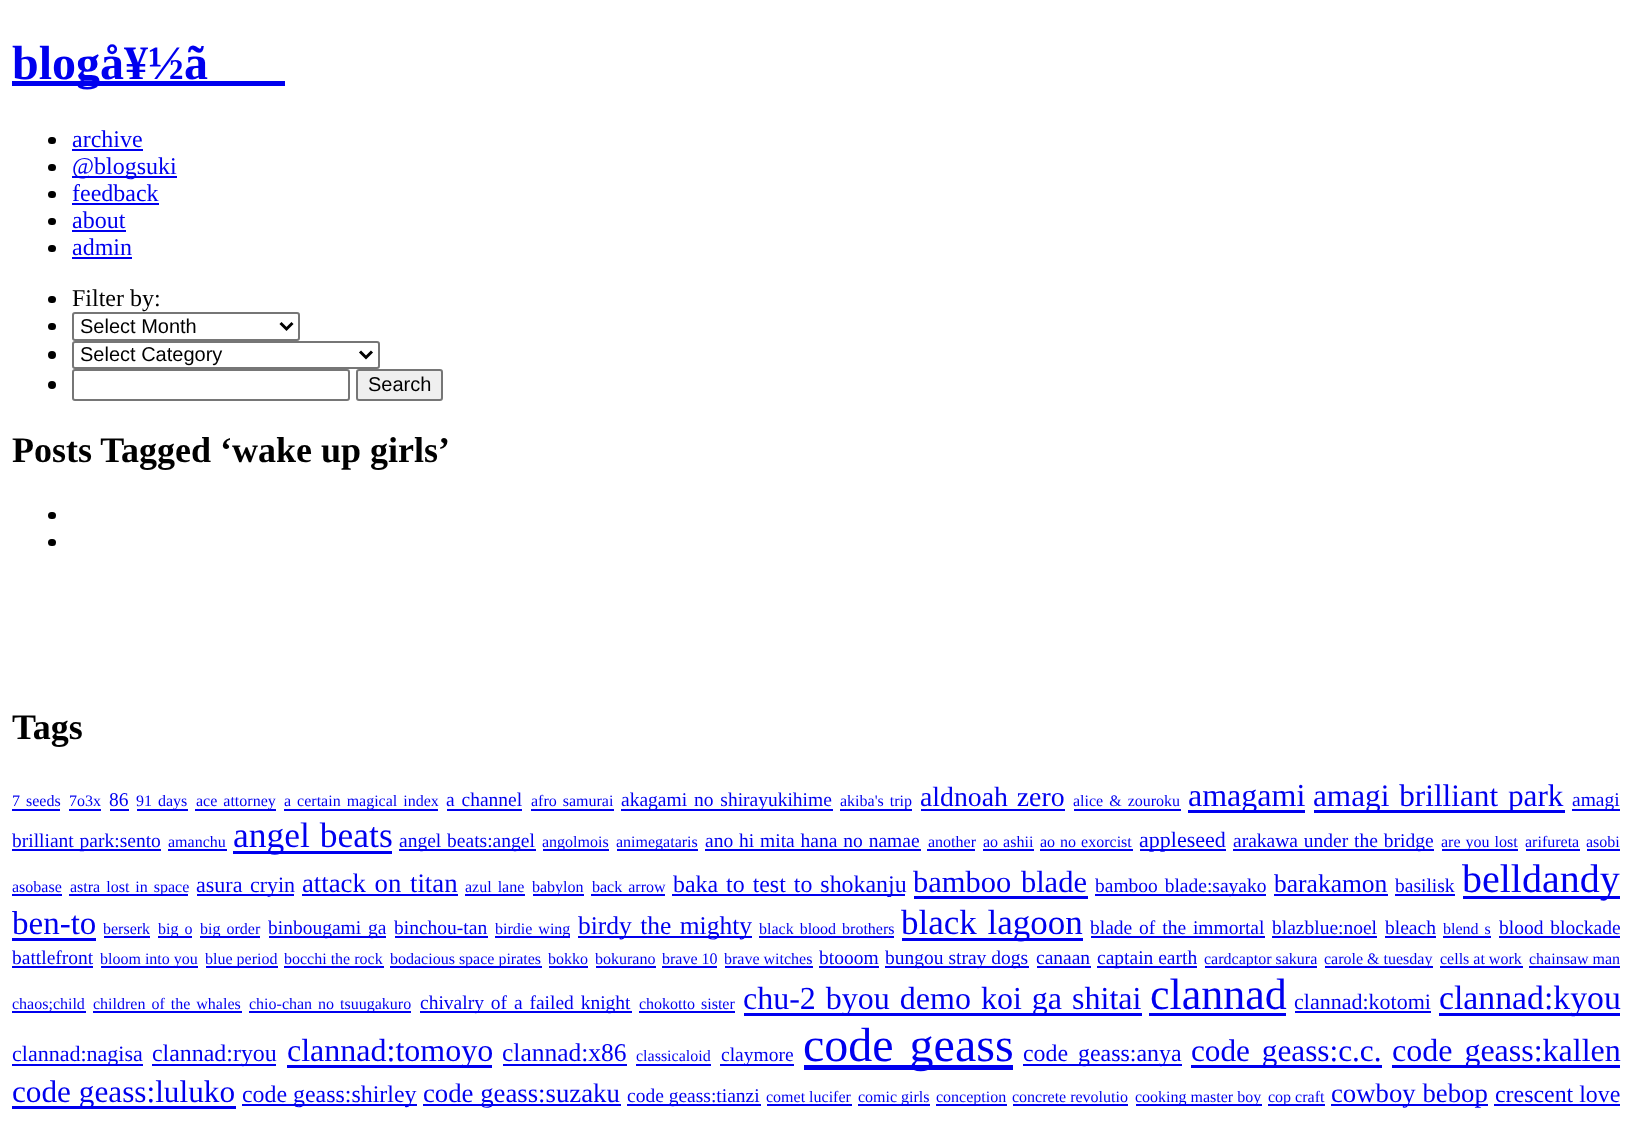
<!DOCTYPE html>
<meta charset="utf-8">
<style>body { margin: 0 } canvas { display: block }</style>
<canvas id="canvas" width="1631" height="1128"></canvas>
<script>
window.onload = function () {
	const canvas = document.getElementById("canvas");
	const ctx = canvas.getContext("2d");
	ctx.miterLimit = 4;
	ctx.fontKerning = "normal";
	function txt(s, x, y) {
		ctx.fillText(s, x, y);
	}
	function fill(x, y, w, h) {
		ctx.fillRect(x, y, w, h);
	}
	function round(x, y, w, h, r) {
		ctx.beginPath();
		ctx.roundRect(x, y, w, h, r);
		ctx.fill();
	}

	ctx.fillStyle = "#FFFFFF";
	fill(0, 0, 1631, 1128);
	ctx.fillStyle = "#0000EE";
	fill(12, 81, 273, 5);
	ctx.fillStyle = "#000000";
	round(48, 137, 8, 7, 3.5);
	ctx.fillStyle = "#0000EE";
	fill(72, 149, 71, 2);
	ctx.fillStyle = "#000000";
	round(48, 164, 8, 7, 3.5);
	ctx.fillStyle = "#0000EE";
	fill(72, 176, 105, 2);
	ctx.fillStyle = "#000000";
	round(48, 191, 8, 7, 3.5);
	ctx.fillStyle = "#0000EE";
	fill(72, 203, 87, 2);
	ctx.fillStyle = "#000000";
	round(48, 218, 8, 7, 3.5);
	ctx.fillStyle = "#0000EE";
	fill(72, 230, 54, 2);
	ctx.fillStyle = "#000000";
	round(48, 245, 8, 7, 3.5);
	ctx.fillStyle = "#0000EE";
	fill(72, 257, 60, 2);
	ctx.fillStyle = "#000000";
	round(48, 296, 8, 7, 3.5);
	round(48, 323, 8, 7, 3.5);
	ctx.beginPath();
	ctx.roundRect(73, 313, 226, 27, 2);
	ctx.strokeStyle = "#767676";
	ctx.lineWidth = 2;
	ctx.stroke();
	ctx.beginPath();
	ctx.moveTo(280.5, 323);
	ctx.lineTo(286.5, 329);
	ctx.lineTo(292.5, 323);
	ctx.strokeStyle = "#000000";
	ctx.lineWidth = 3;
	ctx.stroke();
	ctx.beginPath();
	ctx.arc(52, 355, 4, 0, Math.PI * 2);
	ctx.fill();
	ctx.beginPath();
	ctx.roundRect(73, 342, 306, 26, 2);
	ctx.strokeStyle = "#767676";
	ctx.lineWidth = 2;
	ctx.stroke();
	ctx.beginPath();
	ctx.moveTo(360, 351.5);
	ctx.lineTo(366, 357.5);
	ctx.lineTo(372, 351.5);
	ctx.strokeStyle = "#000000";
	ctx.lineWidth = 3;
	ctx.stroke();
	ctx.beginPath();
	ctx.arc(52, 385, 4, 0, Math.PI * 2);
	ctx.fill();
	ctx.beginPath();
	ctx.roundRect(73, 370, 276, 30, 2);
	ctx.strokeStyle = "#767676";
	ctx.lineWidth = 2;
	ctx.stroke();
	ctx.fillStyle = "#EFEFEF";
	ctx.beginPath();
	ctx.roundRect(357, 370, 85, 30, 2);
	ctx.fill();
	ctx.stroke();
	ctx.fillStyle = "#000000";
	round(48, 512, 8, 7, 3.5);
	round(48, 539, 8, 7, 3.5);
	ctx.fillStyle = "#0000EE";
	fill(12, 809, 48, 2);
	fill(69, 809, 32, 2);
	fill(110, 809, 19, 2);
	fill(137, 809, 51, 2);
	fill(195, 809, 81, 2);
	fill(284, 809, 154, 2);
	fill(447, 809, 75, 2);
	fill(531, 809, 83, 2);
	fill(621, 809, 212, 2);
	fill(840, 809, 72, 2);
	fill(921, 809, 144, 2);
	fill(1074, 809, 107, 2);
	fill(1188, 810, 117, 3);
	fill(1314, 810, 251, 3);
	fill(1572, 809, 48, 2);
	fill(12, 849, 149, 2);
	fill(168, 849, 59, 2);
	fill(233, 851, 159, 3);
	fill(399, 849, 137, 2);
	fill(543, 849, 66, 2);
	fill(617, 849, 81, 2);
	fill(705, 849, 216, 2);
	fill(927, 849, 48, 2);
	fill(983, 849, 51, 2);
	fill(1040, 849, 93, 2);
	fill(1140, 849, 86, 2);
	fill(1233, 849, 201, 2);
	fill(1442, 849, 76, 2);
	fill(1526, 849, 54, 2);
	fill(1587, 849, 33, 2);
	fill(12, 894, 50, 2);
	fill(69, 894, 119, 2);
	fill(197, 894, 97, 2);
	fill(302, 894, 156, 2);
	fill(465, 894, 60, 2);
	fill(533, 894, 51, 2);
	fill(591, 894, 74, 2);
	fill(672, 894, 233, 2);
	fill(914, 896, 174, 3);
	fill(1095, 894, 171, 2);
	fill(1274, 894, 114, 2);
	fill(1395, 894, 60, 2);
	fill(1463, 896, 157, 3);
	fill(12, 938, 84, 3);
	fill(104, 936, 46, 2);
	fill(158, 936, 34, 2);
	fill(200, 936, 60, 2);
	fill(269, 936, 117, 2);
	fill(395, 936, 93, 2);
	fill(495, 936, 75, 2);
	fill(578, 936, 174, 2);
	fill(759, 936, 135, 2);
	fill(902, 938, 181, 3);
	fill(1091, 936, 174, 2);
	fill(1272, 936, 105, 2);
	fill(1385, 936, 51, 2);
	fill(1443, 936, 48, 2);
	fill(1499, 936, 121, 2);
	fill(12, 966, 81, 2);
	fill(101, 966, 97, 2);
	fill(206, 966, 72, 2);
	fill(284, 966, 100, 2);
	fill(390, 966, 152, 2);
	fill(549, 966, 39, 2);
	fill(596, 966, 60, 2);
	fill(662, 966, 55, 2);
	fill(725, 966, 88, 2);
	fill(819, 966, 60, 2);
	fill(885, 966, 144, 2);
	fill(1037, 966, 54, 2);
	fill(1097, 966, 100, 2);
	fill(1205, 966, 112, 2);
	fill(1325, 966, 108, 2);
	fill(1440, 966, 83, 2);
	fill(1529, 966, 91, 2);
	fill(12, 1011, 74, 2);
	fill(93, 1011, 149, 2);
	fill(249, 1011, 162, 2);
	fill(420, 1011, 212, 2);
	fill(639, 1011, 96, 2);
	fill(744, 1013, 398, 3);
	fill(1149, 1013, 137, 3);
	fill(1295, 1011, 136, 2);
	fill(1439, 1013, 181, 3);
	fill(12, 1064, 131, 2);
	fill(152, 1064, 124, 2);
	fill(287, 1065, 205, 3);
	fill(503, 1064, 124, 2);
	fill(636, 1064, 75, 2);
	fill(720, 1064, 74, 2);
	fill(804, 1065, 209, 5);
	fill(1023, 1064, 159, 2);
	fill(1191, 1065, 191, 3);
	fill(1392, 1065, 228, 3);
	fill(12, 1106, 224, 3);
	fill(242, 1104, 175, 2);
	fill(423, 1104, 198, 2);
	fill(627, 1104, 134, 2);
	fill(767, 1104, 85, 2);
	fill(858, 1104, 72, 2);
	fill(936, 1104, 71, 2);
	fill(1013, 1104, 115, 2);
	fill(1136, 1104, 126, 2);
	fill(1268, 1104, 57, 2);
	fill(1331, 1104, 157, 2);
	fill(1494, 1104, 126, 2);
	ctx.font = "bold 48px Liberation Serif";
	txt("blogå¥½ã", 12, 79);
	ctx.font = "24px Liberation Serif";
	txt("archive", 72, 147);
	txt("@blogsuki", 72, 174);
	txt("feedback", 72, 201);
	txt("about", 72, 228);
	txt("admin", 72, 255);
	ctx.fillStyle = "#000000";
	txt("Filter by:", 72, 306);
	ctx.font = "20px Liberation Sans";
	txt("Select Month", 80, 333);
	txt("Select Category", 80, 361);
	txt("Search", 368, 391);
	ctx.font = "bold 36px Liberation Serif";
	txt("Posts Tagged ‘wake up girls’", 12, 462);
	txt("Tags", 12, 739);
	ctx.wordSpacing = "2px";
	ctx.font = "16px Liberation Serif";
	ctx.fillStyle = "#0000EE";
	txt("7 seeds", 12, 806);
	ctx.wordSpacing = "0px";
	txt("7o3x", 69, 806);
	ctx.font = "19.5px Liberation Serif";
	txt("86", 109, 806);
	ctx.wordSpacing = "2px";
	ctx.font = "16px Liberation Serif";
	txt("91 days", 136, 806);
	txt("ace attorney", 196, 806);
	txt("a certain magical index", 284, 806);
	ctx.font = "19.5px Liberation Serif";
	txt("a channel", 446, 806);
	ctx.font = "16px Liberation Serif";
	txt("afro samurai", 531, 806);
	ctx.font = "19.5px Liberation Serif";
	txt("akagami no shirayukihime", 621, 806);
	ctx.font = "16px Liberation Serif";
	txt("akiba's trip", 840, 806);
	ctx.font = "27.75px Liberation Serif";
	txt("aldnoah zero", 920, 806);
	ctx.font = "16px Liberation Serif";
	txt("alice & zouroku", 1073, 806);
	ctx.wordSpacing = "0px";
	ctx.font = "32px Liberation Serif";
	txt("amagami", 1188, 806);
	ctx.wordSpacing = "2px";
	ctx.font = "31.25px Liberation Serif";
	txt("amagi brilliant park", 1313, 806);
	ctx.wordSpacing = "0px";
	ctx.font = "19.5px Liberation Serif";
	txt("amagi", 1572, 806);
	ctx.wordSpacing = "1px";
	txt("brilliant park:sento", 12, 847);
	ctx.wordSpacing = "0px";
	ctx.font = "16px Liberation Serif";
	txt("amanchu", 168, 847);
	ctx.wordSpacing = "1px";
	ctx.font = "35.5px Liberation Serif";
	txt("angel beats", 233, 847);
	ctx.font = "19.5px Liberation Serif";
	txt("angel beats:angel", 399, 847);
	ctx.wordSpacing = "0px";
	ctx.font = "16px Liberation Serif";
	txt("angolmois", 542, 847);
	txt("animegataris", 616, 847);
	ctx.wordSpacing = "1px";
	ctx.font = "19.5px Liberation Serif";
	txt("ano hi mita hana no namae", 705, 847);
	ctx.wordSpacing = "0px";
	ctx.font = "16px Liberation Serif";
	txt("another", 928, 847);
	ctx.wordSpacing = "1px";
	txt("ao ashii", 983, 847);
	txt("ao no exorcist", 1040, 847);
	ctx.wordSpacing = "0px";
	ctx.font = "22px Liberation Serif";
	txt("appleseed", 1139, 847);
	ctx.wordSpacing = "1px";
	ctx.font = "19.5px Liberation Serif";
	txt("arakawa under the bridge", 1233, 847);
	ctx.font = "16px Liberation Serif";
	txt("are you lost", 1441, 847);
	ctx.wordSpacing = "0px";
	txt("arifureta", 1525, 847);
	txt("asobi", 1586, 847);
	txt("asobase", 12, 892);
	ctx.wordSpacing = "2px";
	txt("astra lost in space", 70, 892);
	ctx.font = "22px Liberation Serif";
	txt("asura cryin", 196, 892);
	ctx.font = "26.75px Liberation Serif";
	txt("attack on titan", 302, 892);
	ctx.font = "16px Liberation Serif";
	txt("azul lane", 465, 892);
	ctx.wordSpacing = "0px";
	txt("babylon", 532, 892);
	ctx.wordSpacing = "2px";
	txt("back arrow", 592, 892);
	ctx.font = "23.9px Liberation Serif";
	txt("baka to test to shokanju", 673, 892);
	ctx.font = "30.5px Liberation Serif";
	txt("bamboo blade", 913, 892);
	ctx.font = "19.5px Liberation Serif";
	txt("bamboo blade:sayako", 1095, 892);
	ctx.wordSpacing = "0px";
	ctx.font = "25.5px Liberation Serif";
	txt("barakamon", 1274, 892);
	ctx.font = "19.5px Liberation Serif";
	txt("basilisk", 1395, 892);
	ctx.font = "40px Liberation Serif";
	txt("belldandy", 1462, 892);
	ctx.font = "33px Liberation Serif";
	txt("ben-to", 12, 934);
	ctx.font = "16px Liberation Serif";
	txt("berserk", 103, 934);
	ctx.wordSpacing = "2px";
	txt("big o", 158, 934);
	txt("big order", 200, 934);
	ctx.font = "19.5px Liberation Serif";
	txt("binbougami ga", 268, 934);
	ctx.wordSpacing = "0px";
	txt("binchou-tan", 394, 934);
	ctx.wordSpacing = "2px";
	ctx.font = "16px Liberation Serif";
	txt("birdie wing", 495, 934);
	ctx.font = "25.5px Liberation Serif";
	txt("birdy the mighty", 578, 934);
	ctx.font = "16px Liberation Serif";
	txt("black blood brothers", 759, 934);
	ctx.font = "35px Liberation Serif";
	txt("black lagoon", 901, 934);
	ctx.font = "19.5px Liberation Serif";
	txt("blade of the immortal", 1090, 934);
	ctx.wordSpacing = "0px";
	txt("blazblue:noel", 1272, 934);
	txt("bleach", 1385, 934);
	ctx.wordSpacing = "2px";
	ctx.font = "16px Liberation Serif";
	txt("blend s", 1443, 934);
	ctx.font = "19.5px Liberation Serif";
	txt("blood blockade", 1499, 934);
	ctx.wordSpacing = "0px";
	txt("battlefront", 12, 964);
	ctx.font = "16px Liberation Serif";
	txt("bloom into you", 100, 964);
	txt("blue period", 205, 964);
	txt("bocchi the rock", 284, 964);
	txt("bodacious space pirates", 390, 964);
	txt("bokko", 548, 964);
	txt("bokurano", 595, 964);
	txt("brave 10", 662, 964);
	txt("brave witches", 724, 964);
	ctx.font = "19.5px Liberation Serif";
	txt("btooom", 819, 964);
	txt("bungou stray dogs", 885, 964);
	txt("canaan", 1036, 964);
	txt("captain earth", 1097, 964);
	ctx.font = "16px Liberation Serif";
	txt("cardcaptor sakura", 1204, 964);
	txt("carole & tuesday", 1324, 964);
	txt("cells at work", 1440, 964);
	txt("chainsaw man", 1529, 964);
	txt("chaos;child", 12, 1009);
	ctx.wordSpacing = "2px";
	txt("children of the whales", 93, 1009);
	txt("chio-chan no tsuugakuro", 249, 1009);
	ctx.font = "19.5px Liberation Serif";
	txt("chivalry of a failed knight", 420, 1009);
	ctx.font = "16px Liberation Serif";
	txt("chokotto sister", 639, 1009);
	ctx.font = "32px Liberation Serif";
	txt("chu-2 byou demo koi ga shitai", 743, 1009);
	ctx.wordSpacing = "0px";
	ctx.font = "44px Liberation Serif";
	txt("clannad", 1150, 1009);
	ctx.font = "22px Liberation Serif";
	txt("clannad:kotomi", 1294, 1009);
	ctx.font = "33.75px Liberation Serif";
	txt("clannad:kyou", 1439, 1009);
	ctx.font = "22px Liberation Serif";
	txt("clannad:nagisa", 12, 1061);
	ctx.font = "23.9px Liberation Serif";
	txt("clannad:ryou", 152, 1061);
	ctx.font = "32px Liberation Serif";
	txt("clannad:tomoyo", 287, 1061);
	ctx.font = "25.5px Liberation Serif";
	txt("clannad:x86", 502, 1061);
	ctx.font = "16px Liberation Serif";
	txt("classicaloid", 636, 1061);
	ctx.font = "19.5px Liberation Serif";
	txt("claymore", 721, 1061);
	ctx.wordSpacing = "4px";
	ctx.font = "48px Liberation Serif";
	txt("code geass", 803, 1061);
	ctx.font = "23.9px Liberation Serif";
	txt("code geass:anya", 1023, 1061);
	ctx.font = "31.25px Liberation Serif";
	txt("code geass:c.c.", 1191, 1061);
	ctx.font = "32px Liberation Serif";
	txt("code geass:kallen", 1392, 1061);
	ctx.wordSpacing = "0px";
	ctx.font = "31.25px Liberation Serif";
	txt("code geass:luluko", 12, 1102);
	ctx.font = "23.9px Liberation Serif";
	txt("code geass:shirley", 242, 1102);
	ctx.font = "26.75px Liberation Serif";
	txt("code geass:suzaku", 423, 1102);
	ctx.font = "19.5px Liberation Serif";
	txt("code geass:tianzi", 627, 1102);
	ctx.font = "16px Liberation Serif";
	txt("comet lucifer", 766, 1102);
	txt("comic girls", 858, 1102);
	txt("conception", 936, 1102);
	txt("concrete revolutio", 1012, 1102);
	txt("cooking master boy", 1135, 1102);
	txt("cop craft", 1268, 1102);
	ctx.font = "26.75px Liberation Serif";
	txt("cowboy bebop", 1331, 1102);
	ctx.font = "23.9px Liberation Serif";
	txt("crescent love", 1495, 1102);
};
</script>
